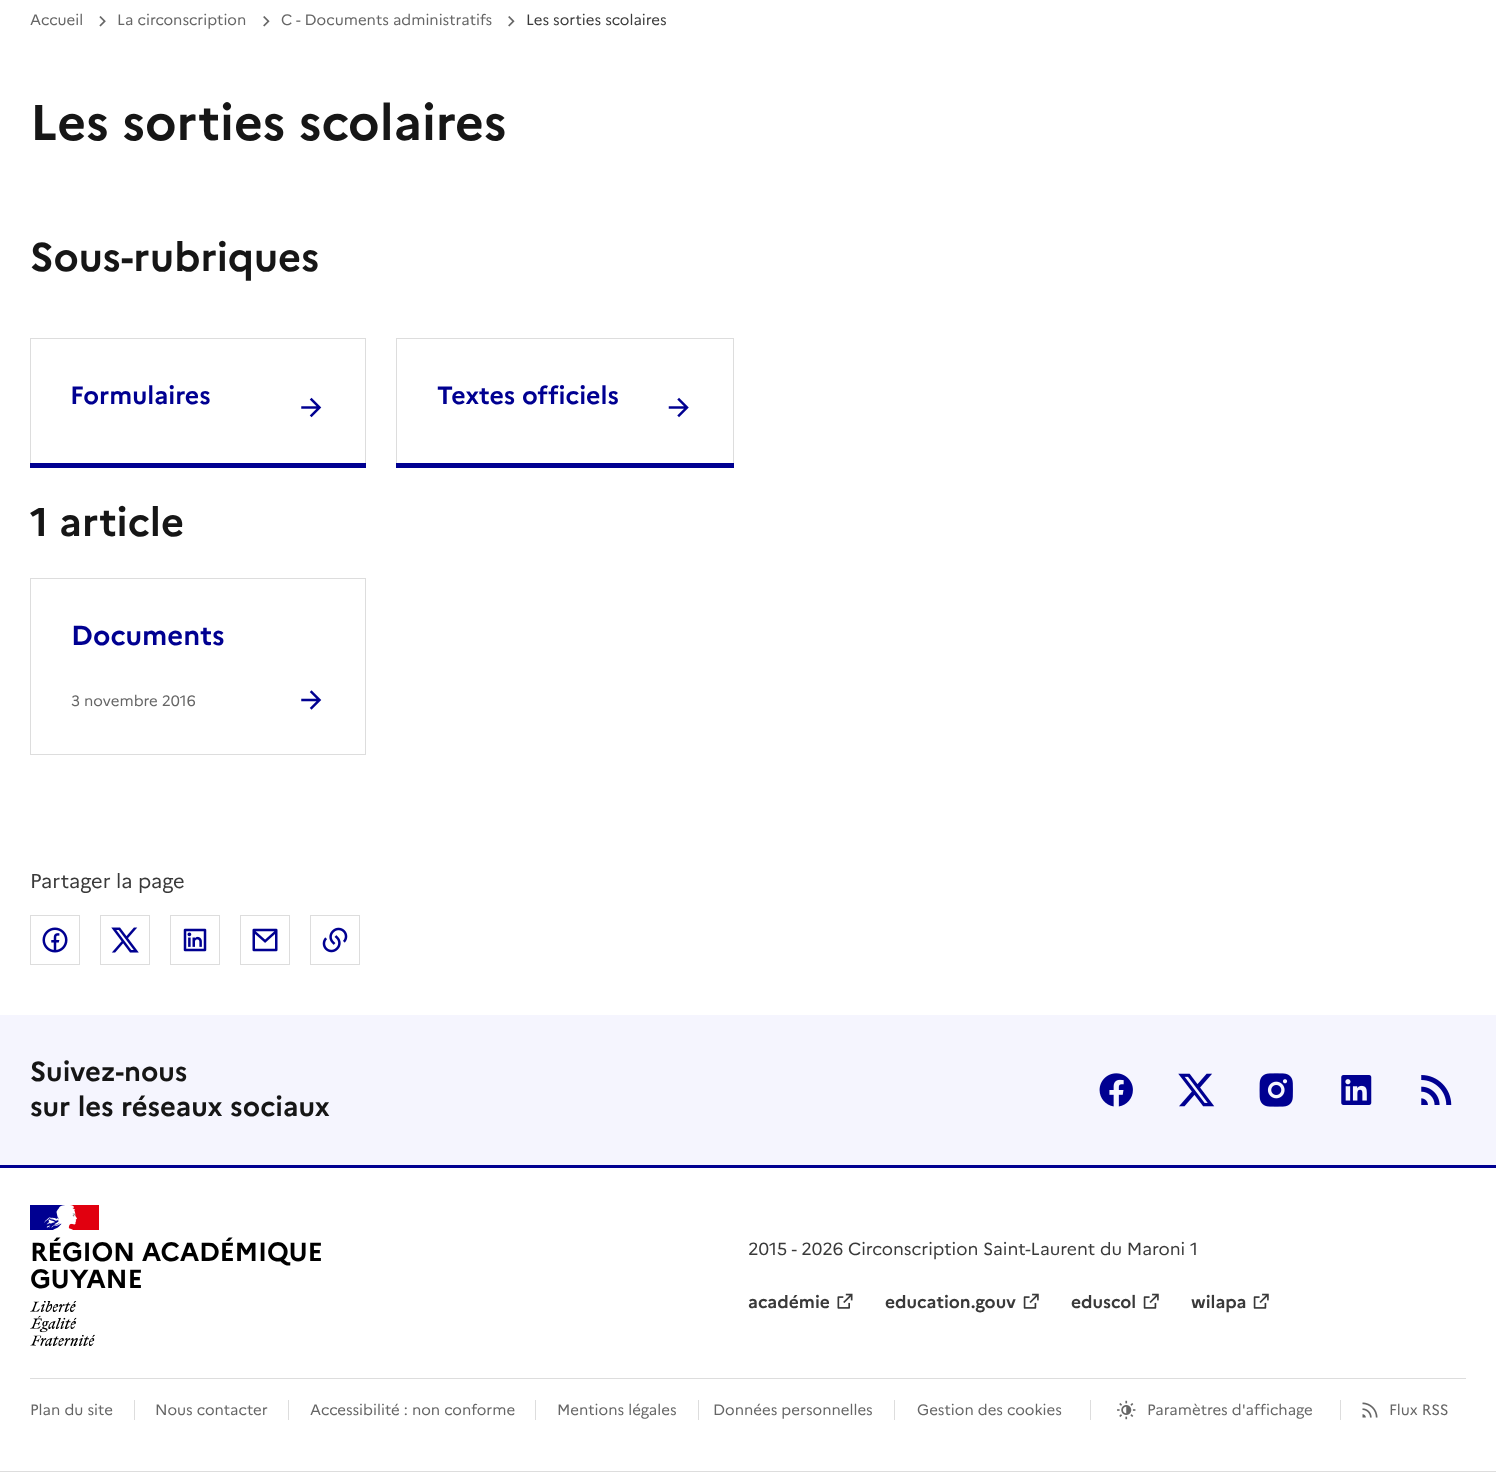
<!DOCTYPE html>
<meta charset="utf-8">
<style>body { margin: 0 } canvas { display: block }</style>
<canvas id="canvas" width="1496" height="1472"></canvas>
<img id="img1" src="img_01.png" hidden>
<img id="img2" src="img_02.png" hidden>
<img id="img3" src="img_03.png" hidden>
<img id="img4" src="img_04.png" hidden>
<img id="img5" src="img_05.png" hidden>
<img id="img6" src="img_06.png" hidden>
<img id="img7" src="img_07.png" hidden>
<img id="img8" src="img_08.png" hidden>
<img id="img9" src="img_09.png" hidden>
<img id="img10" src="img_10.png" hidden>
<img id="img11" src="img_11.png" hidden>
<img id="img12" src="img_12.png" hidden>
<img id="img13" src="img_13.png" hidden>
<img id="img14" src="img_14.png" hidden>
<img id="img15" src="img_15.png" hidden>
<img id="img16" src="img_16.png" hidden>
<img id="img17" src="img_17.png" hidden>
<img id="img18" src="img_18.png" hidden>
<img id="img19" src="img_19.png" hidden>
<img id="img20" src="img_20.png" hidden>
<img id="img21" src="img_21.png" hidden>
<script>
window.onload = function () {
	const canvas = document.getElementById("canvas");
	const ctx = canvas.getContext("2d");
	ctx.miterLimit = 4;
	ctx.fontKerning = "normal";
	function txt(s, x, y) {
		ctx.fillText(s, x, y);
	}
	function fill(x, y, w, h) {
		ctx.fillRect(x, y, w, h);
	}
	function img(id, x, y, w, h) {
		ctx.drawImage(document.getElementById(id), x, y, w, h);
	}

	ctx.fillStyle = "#FFFFFF";
	fill(0, 0, 1496, 1472);
	img("img1", 99, 16, 7, 11);
	img("img2", 263, 16, 7, 11);
	img("img2", 508, 16, 7, 11);
	ctx.fillStyle = "#DDDDDD";
	fill(30, 338, 336, 1);
	fill(365, 338, 1, 130);
	fill(30, 338, 1, 130);
	img("img3", 301, 397, 21, 21);
	ctx.fillStyle = "#000091";
	fill(30, 463, 336, 5);
	ctx.fillStyle = "#DDDDDD";
	fill(396, 338, 338, 1);
	fill(733, 338, 1, 130);
	fill(396, 338, 1, 130);
	img("img4", 668, 397, 21, 21);
	ctx.fillStyle = "#000091";
	fill(396, 463, 338, 5);
	ctx.fillStyle = "#DDDDDD";
	fill(30, 578, 336, 1);
	fill(365, 578, 1, 177);
	fill(30, 578, 1, 177);
	fill(30, 754, 336, 1);
	img("img5", 301, 690, 21, 20);
	ctx.strokeStyle = "#DDDDDD";
	ctx.strokeRect(30.5, 915.5, 49, 49);
	img("img6", 42, 927, 26, 26);
	ctx.strokeRect(100.5, 915.5, 49, 49);
	img("img7", 111, 927, 28, 26);
	ctx.strokeRect(170.5, 915.5, 49, 49);
	img("img8", 183, 928, 24, 24);
	ctx.strokeRect(240.5, 915.5, 49, 49);
	img("img9", 252, 928, 26, 24);
	ctx.strokeRect(310.5, 915.5, 49, 49);
	img("img10", 322, 927, 26, 26);
	ctx.fillStyle = "#F5F5FE";
	fill(0, 1015, 1496, 150);
	img("img11", 1099, 1073, 34, 34);
	img("img12", 1178, 1073, 37, 34);
	img("img13", 1259, 1073, 34, 34);
	img("img14", 1341, 1075, 31, 30);
	img("img15", 1421, 1075, 31, 30);
	ctx.fillStyle = "#DDDDDD";
	fill(0, 1471, 1496, 1);
	ctx.fillStyle = "#000091";
	fill(0, 1165, 1496, 3);
	fill(30, 1205, 35, 25);
	ctx.fillStyle = "#E1000F";
	fill(68, 1205, 31, 25);
	img("img16", 44, 1205, 33, 25);
	img("img17", 30, 1301, 65, 45);
	img("img18", 837, 1293, 16, 16);
	img("img19", 1023, 1293, 16, 16);
	img("img19", 1143, 1293, 16, 16);
	img("img19", 1253, 1293, 16, 16);
	ctx.fillStyle = "#DDDDDD";
	fill(30, 1378, 1436, 1);
	fill(134, 1400, 1, 20);
	fill(288, 1400, 1, 20);
	fill(535, 1400, 1, 20);
	fill(698, 1400, 1, 20);
	fill(894, 1400, 1, 20);
	fill(1090, 1400, 1, 20);
	img("img20", 1117, 1400, 19, 20);
	fill(1340, 1400, 1, 20);
	img("img21", 1362, 1402, 16, 16);
	ctx.font = "15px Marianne";
	ctx.fillStyle = "#666666";
	txt("Accueil", 30, 25);
	txt("La circonscription", 117, 25);
	txt("C - Documents administratifs", 281, 25);
	ctx.fillStyle = "#3A3A3A";
	txt("Les sorties scolaires", 526, 25);
	ctx.font = "bold 50px Marianne";
	ctx.fillStyle = "#161616";
	txt("Les sorties scolaires", 30, 140);
	ctx.font = "bold 40px Marianne";
	txt("Sous-rubriques", 30, 271);
	ctx.font = "bold 25px Marianne";
	ctx.fillStyle = "#000091";
	txt("Formulaires", 70, 404);
	txt("Textes officiels", 437, 404);
	ctx.font = "bold 40px Marianne";
	ctx.fillStyle = "#161616";
	txt("1 article", 30, 536);
	ctx.font = "bold 27.5px Marianne";
	ctx.fillStyle = "#000091";
	txt("Documents", 71, 645);
	ctx.font = "15px Marianne";
	ctx.fillStyle = "#666666";
	txt("3 novembre 2016", 71, 706);
	ctx.font = "20px Marianne";
	ctx.fillStyle = "#3A3A3A";
	txt("Partager la page", 30, 888);
	ctx.font = "bold 27.5px Marianne";
	ctx.fillStyle = "#161616";
	txt("Suivez-nous", 30, 1081);
	txt("sur les réseaux sociaux", 30, 1116);
	ctx.letterSpacing = "-0.25px";
	ctx.font = "bold 26.25px Marianne";
	ctx.fillStyle = "#000000";
	txt("RÉGION ACADÉMIQUE", 30, 1261);
	txt("GUYANE", 30, 1288);
	ctx.letterSpacing = "0px";
	ctx.font = "17.5px Marianne";
	ctx.fillStyle = "#3A3A3A";
	txt("2015 - 2026 Circonscription Saint-Laurent du Maroni 1", 748, 1255);
	ctx.font = "bold 17.5px Marianne";
	txt("académie", 748, 1308);
	txt("education.gouv", 885, 1308);
	txt("eduscol", 1071, 1308);
	txt("wilapa", 1191, 1308);
	ctx.font = "15px Marianne";
	ctx.fillStyle = "#666666";
	txt("Plan du site", 30, 1415);
	txt("Nous contacter", 155, 1415);
	txt("Accessibilité : non conforme", 310, 1415);
	txt("Mentions légales", 557, 1415);
	txt("Données personnelles", 713, 1415);
	txt("Gestion des cookies", 917, 1415);
	txt("Paramètres d'affichage", 1147, 1415);
	txt("Flux RSS", 1389, 1415);
};
</script>
